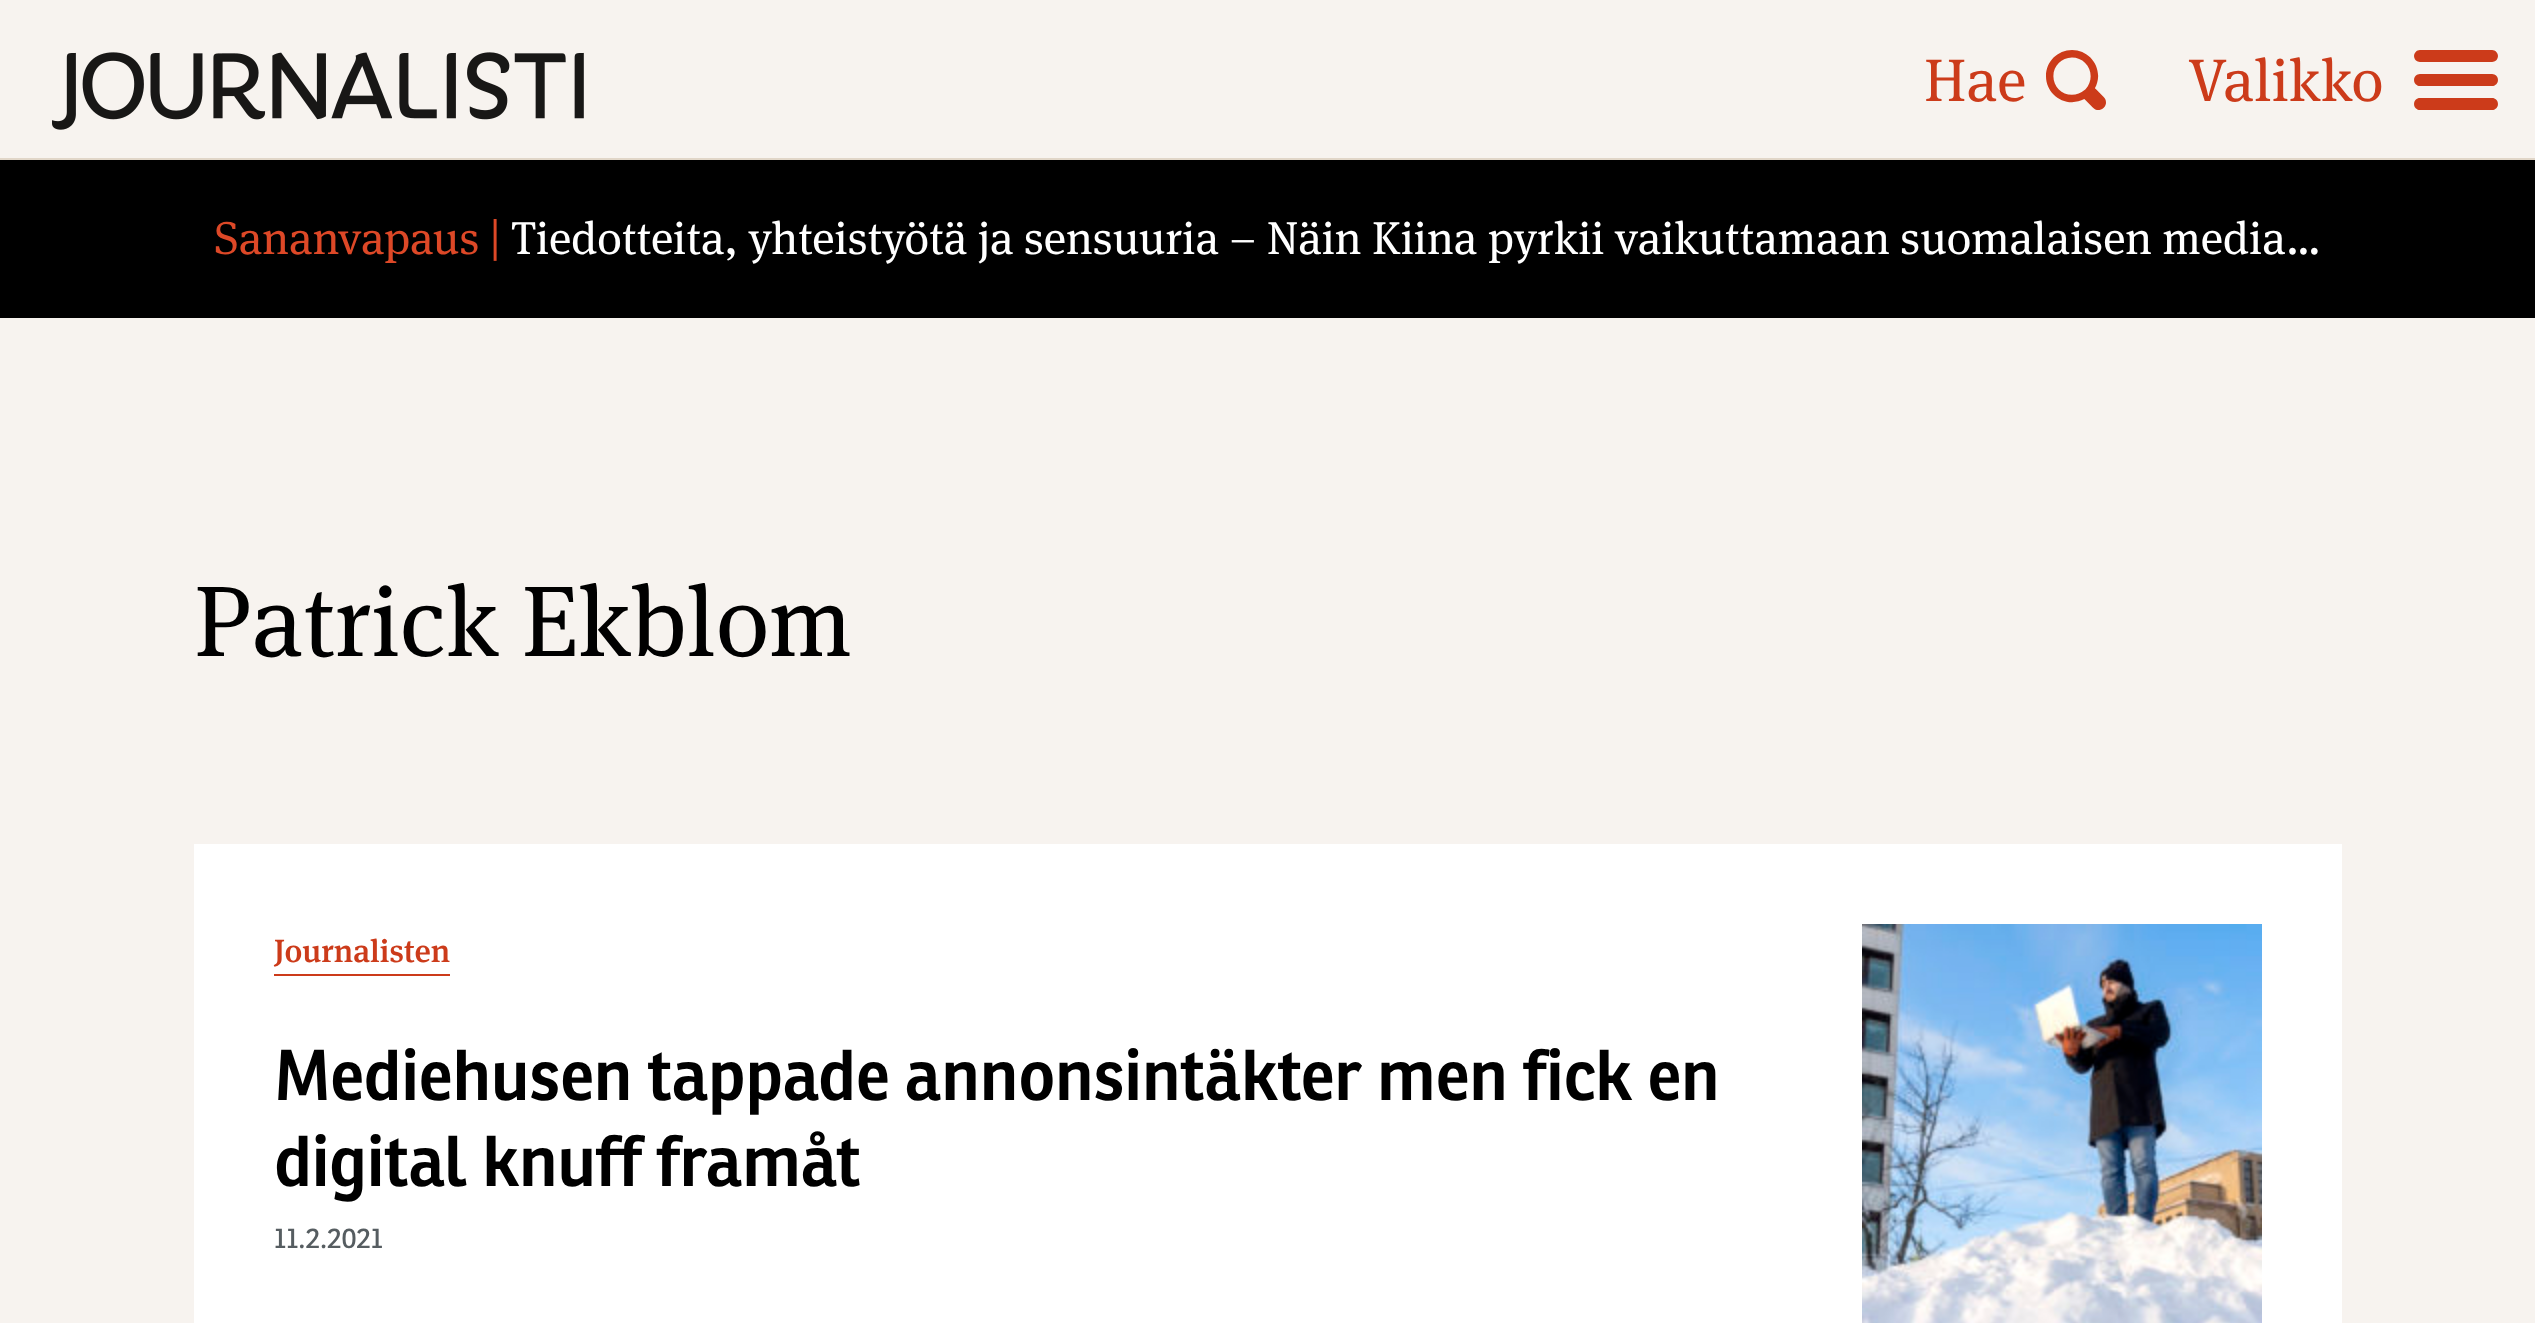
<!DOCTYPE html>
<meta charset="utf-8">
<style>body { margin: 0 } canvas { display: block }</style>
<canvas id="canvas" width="2535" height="1323"></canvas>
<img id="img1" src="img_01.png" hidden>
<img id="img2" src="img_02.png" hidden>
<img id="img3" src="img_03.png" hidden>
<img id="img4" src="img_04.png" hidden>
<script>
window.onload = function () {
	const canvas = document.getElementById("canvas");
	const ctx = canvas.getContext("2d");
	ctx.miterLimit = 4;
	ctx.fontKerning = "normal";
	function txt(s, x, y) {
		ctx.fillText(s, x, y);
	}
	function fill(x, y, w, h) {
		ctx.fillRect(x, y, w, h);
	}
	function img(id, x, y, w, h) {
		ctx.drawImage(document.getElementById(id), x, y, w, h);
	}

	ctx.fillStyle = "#F7F3EF";
	fill(0, 0, 2535, 1323);
	ctx.fillStyle = "#E1D6C8";
	fill(0, 158, 2535, 2);
	img("img1", 52, 52, 532, 78);
	img("img2", 2046, 50, 60, 60);
	img("img3", 2414, 50, 84, 60);
	ctx.fillStyle = "#000000";
	fill(0, 160, 2535, 158);
	ctx.fillStyle = "#FFFFFF";
	fill(194, 844, 2148, 479);
	ctx.fillStyle = "#CC3B1A";
	fill(274, 974, 176, 2);
	img("img4", 1862, 924, 400, 399);
	ctx.font = "60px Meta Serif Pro";
	txt("Hae", 1924, 101);
	txt("Valikko", 2188, 101);
	ctx.font = "46px Meta Serif Pro";
	ctx.fillStyle = "#DD4827";
	txt("Sananvapaus |", 214, 254);
	ctx.fillStyle = "#FFFFFF";
	txt("Tiedotteita, yhteistyötä ja sensuuria – Näin Kiina pyrkii vaikuttamaan suomalaisen media…", 511, 254);
	ctx.font = "100px Meta Serif Pro";
	ctx.fillStyle = "#000000";
	txt("Patrick Ekblom", 194, 656);
	ctx.font = "500 32px Meta Serif Pro";
	ctx.fillStyle = "#CC3B1A";
	txt("Journalisten", 274, 962);
	ctx.letterSpacing = "-0.7px";
	ctx.font = "600 70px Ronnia";
	ctx.fillStyle = "#000000";
	txt("Mediehusen tappade annonsintäkter men fick en", 274, 1100);
	txt("digital knuff framåt", 274, 1186);
	ctx.letterSpacing = "0px";
	ctx.font = "28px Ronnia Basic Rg";
	ctx.fillStyle = "#565D61";
	txt("11.2.2021", 274, 1248);
};
</script>
